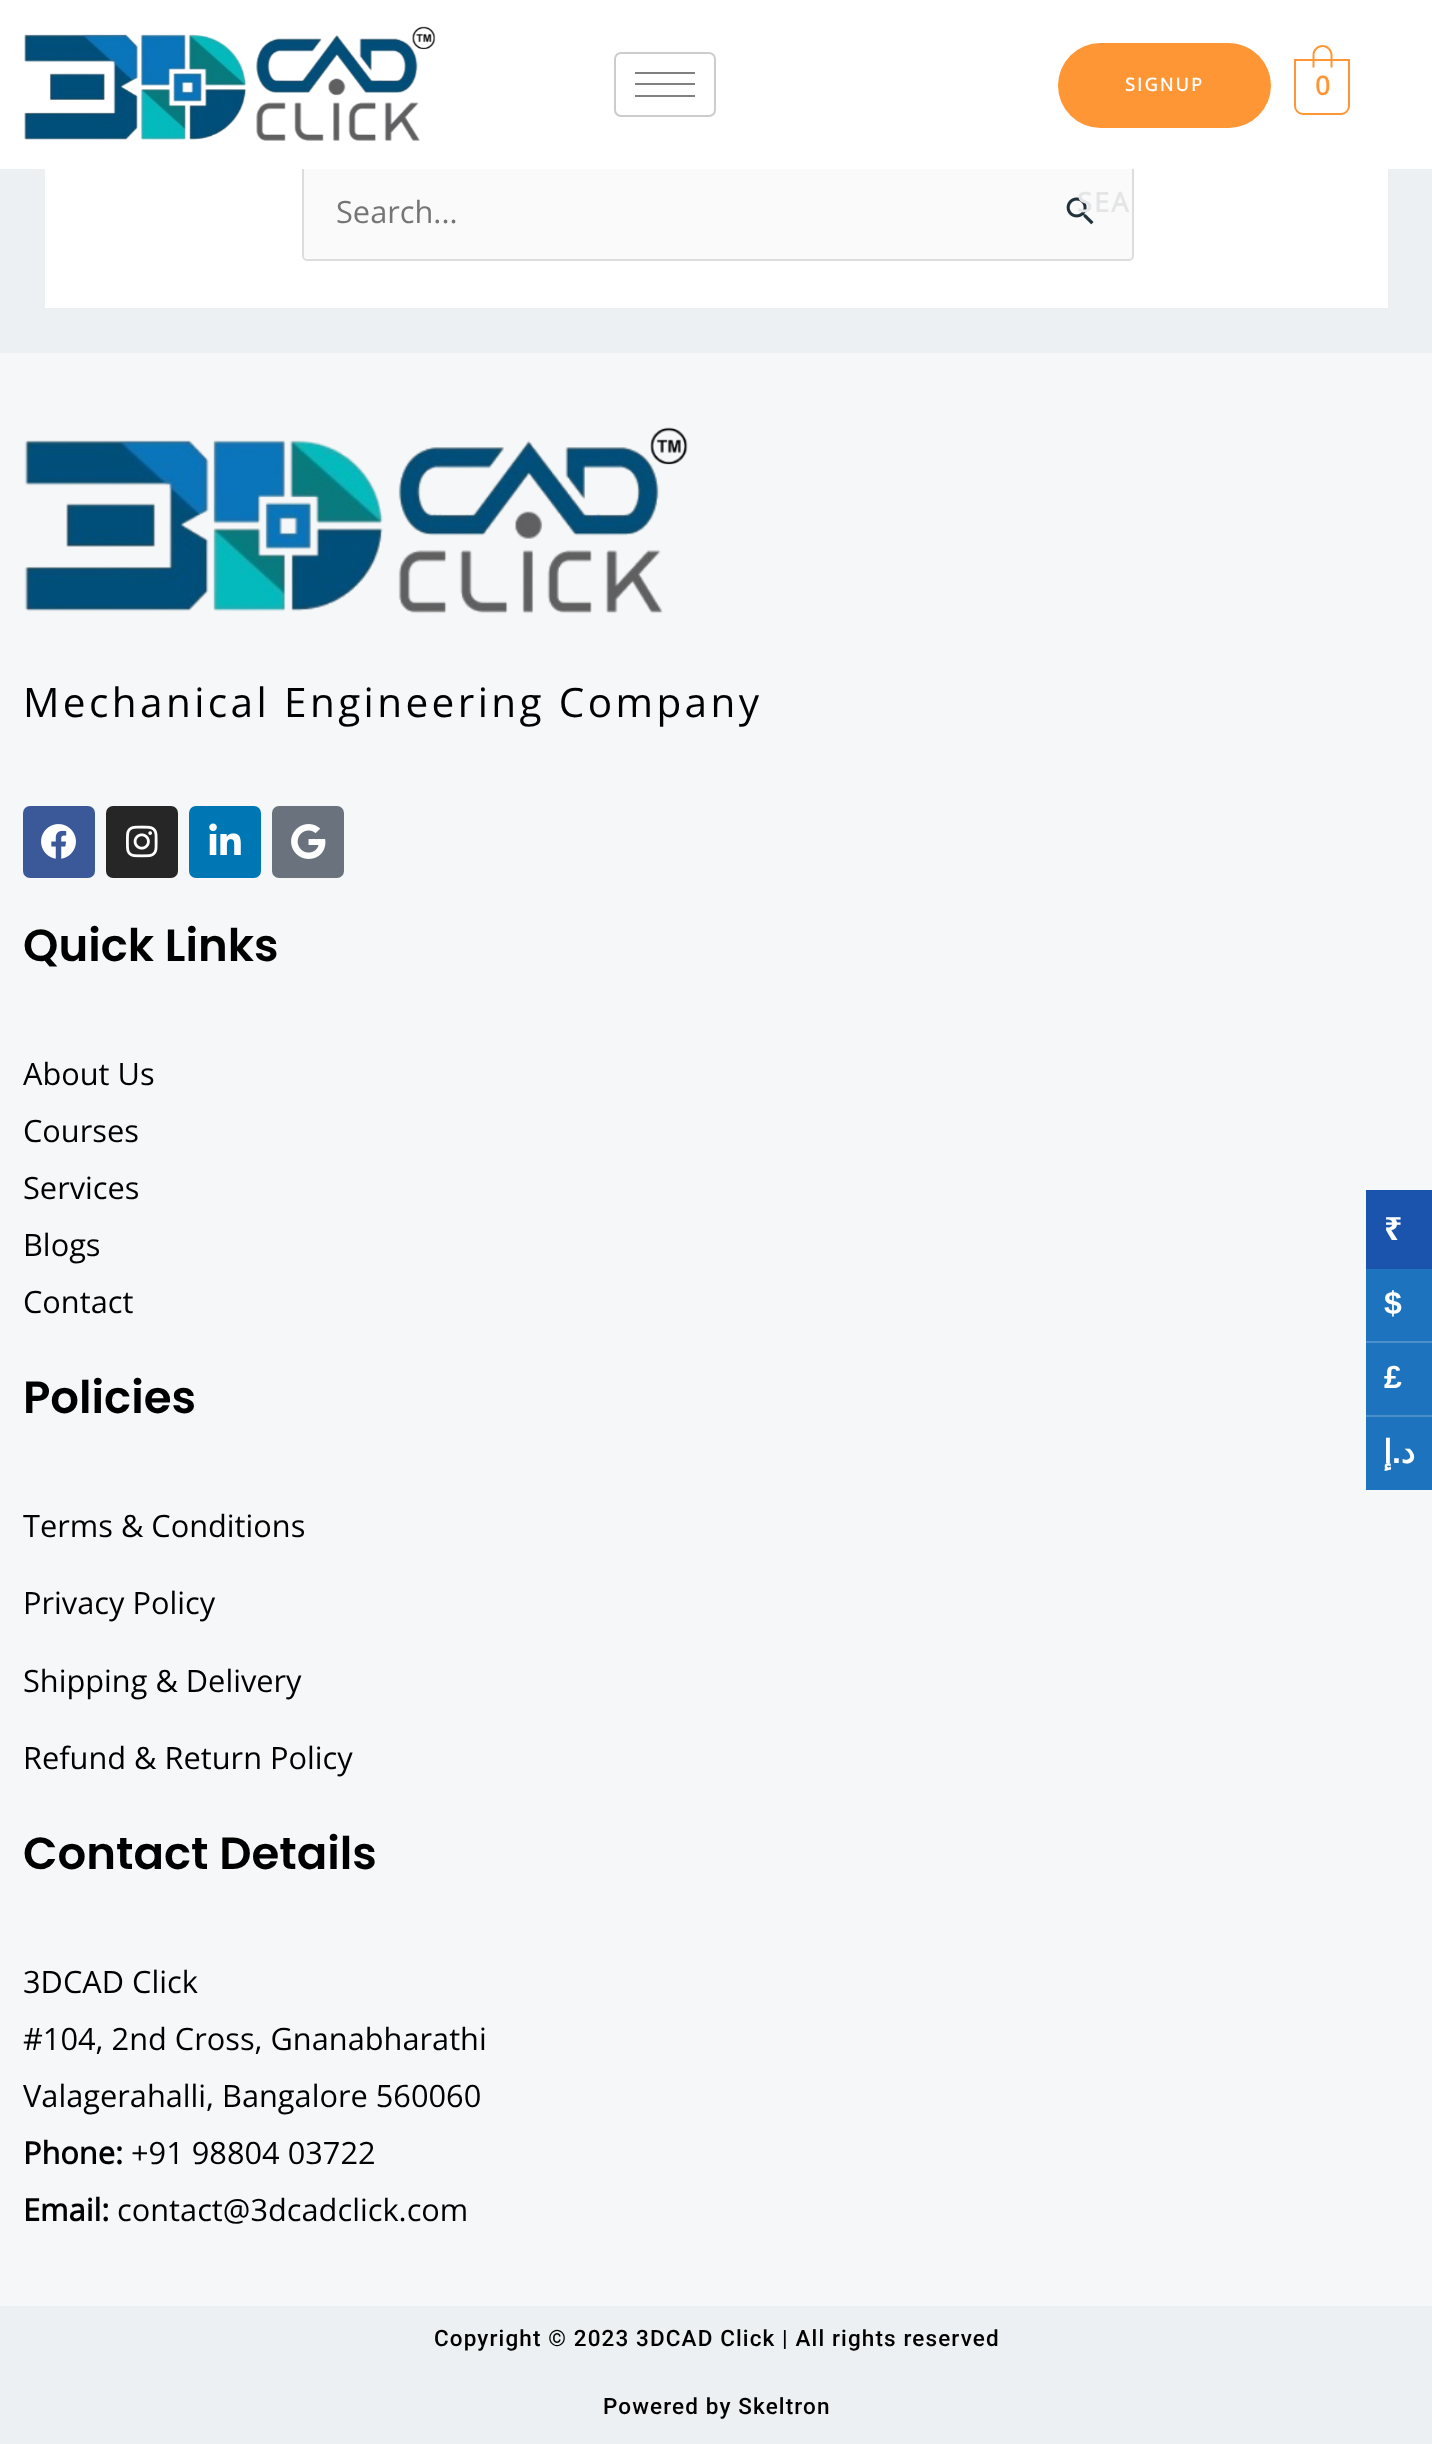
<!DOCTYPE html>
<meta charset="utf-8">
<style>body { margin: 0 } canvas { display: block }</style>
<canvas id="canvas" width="1432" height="2444"></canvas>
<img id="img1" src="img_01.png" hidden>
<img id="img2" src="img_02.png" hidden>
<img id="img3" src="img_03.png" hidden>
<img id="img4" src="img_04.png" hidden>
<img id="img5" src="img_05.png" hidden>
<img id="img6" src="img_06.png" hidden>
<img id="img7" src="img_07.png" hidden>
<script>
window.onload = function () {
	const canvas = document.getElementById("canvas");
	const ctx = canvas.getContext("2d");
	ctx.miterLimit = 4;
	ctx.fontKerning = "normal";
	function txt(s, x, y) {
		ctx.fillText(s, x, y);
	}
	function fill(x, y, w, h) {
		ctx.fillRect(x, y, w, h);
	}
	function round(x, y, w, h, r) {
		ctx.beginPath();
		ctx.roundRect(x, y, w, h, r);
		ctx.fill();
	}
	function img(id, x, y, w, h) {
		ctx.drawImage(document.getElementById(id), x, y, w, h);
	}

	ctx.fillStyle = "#ECF0F2";
	fill(0, 0, 1432, 2444);
	ctx.fillStyle = "#FFFFFF";
	fill(45, 169, 1343, 139);
	ctx.fillStyle = "#FAFAFA";
	ctx.beginPath();
	ctx.roundRect(303, 161, 830, 99, 4);
	ctx.fill();
	ctx.strokeStyle = "#DDDDDD";
	ctx.lineWidth = 2;
	ctx.stroke();
	ctx.fillStyle = "#FFFFFF";
	fill(0, 0, 1432, 169);
	img("img1", 24, 26, 412, 115);
	ctx.beginPath();
	ctx.roundRect(615, 53, 100, 63, 6);
	ctx.strokeStyle = "#CCCCCC";
	ctx.stroke();
	ctx.fillStyle = "#808080";
	fill(635, 72, 60, 2);
	fill(635, 83, 60, 2);
	fill(635, 95, 60, 2);
	ctx.fillStyle = "#FF9635";
	round(1058, 43, 213, 85, 42.5);
	ctx.beginPath();
	ctx.roundRect(1295, 60, 54, 54, [0, 0, 8, 8]);
	ctx.strokeStyle = "#FF9635";
	ctx.stroke();
	ctx.beginPath();
	ctx.moveTo(1322.5, 45);
	ctx.bezierCurveTo(1328, 45, 1332.5, 49.5, 1332.5, 55);
	ctx.lineTo(1332.5, 67.5);
	ctx.lineTo(1312.5, 67.5);
	ctx.lineTo(1312.5, 55);
	ctx.bezierCurveTo(1312.5, 49.5, 1317, 45, 1322.5, 45);
	ctx.closePath();
	ctx.moveTo(1322.5, 47);
	ctx.bezierCurveTo(1327, 47, 1330.5, 51, 1330.5, 55);
	ctx.lineTo(1330.5, 67.5);
	ctx.lineTo(1314.5, 67.5);
	ctx.lineTo(1314.5, 55);
	ctx.bezierCurveTo(1314.5, 51, 1318, 47, 1322.5, 47);
	ctx.closePath();
	ctx.fill("evenodd");
	img("img2", 1066, 197, 28, 28);
	ctx.fillStyle = "#F5F7F8";
	fill(0, 353, 1432, 1953);
	img("img3", 24, 427, 664, 187);
	ctx.fillStyle = "#3B5998";
	round(23, 806, 72, 72, 7);
	img("img4", 41, 824, 35, 35);
	ctx.fillStyle = "#262626";
	round(106, 806, 72, 72, 7);
	img("img5", 126, 825, 32, 33);
	ctx.fillStyle = "#0077B5";
	round(189, 806, 72, 72, 7);
	img("img6", 209, 823, 32, 32);
	ctx.fillStyle = "#69727D";
	round(272, 806, 72, 72, 7);
	img("img7", 291, 824, 35, 35);
	ctx.fillStyle = "#1E73BE";
	fill(1366, 1269, 66, 221);
	ctx.fillStyle = "#1A54AD";
	fill(1366, 1190, 66, 79);
	ctx.fillStyle = "#4B8FCB";
	fill(1366, 1341, 66, 2);
	fill(1366, 1415, 66, 2);
	ctx.letterSpacing = "2.25px";
	ctx.font = "bold 18px Open Sans";
	ctx.fillStyle = "#FFFFFF";
	txt("SIGNUP", 1125, 91);
	ctx.letterSpacing = "0px";
	ctx.font = "bold 26px Open Sans";
	ctx.fillStyle = "#FF9635";
	txt("0", 1315, 95);
	ctx.letterSpacing = "2.25px";
	ctx.font = "bold 27px Open Sans";
	ctx.fillStyle = "#E4E5E6";
	txt("SEA", 1077, 212);
	ctx.letterSpacing = "0px";
	ctx.font = "30.75px Open Sans";
	ctx.fillStyle = "#757575";
	txt("Search...", 336, 223);
	ctx.letterSpacing = "3.4px";
	ctx.font = "40.5px Open Sans";
	ctx.fillStyle = "#000000";
	txt("Mechanical Engineering Company", 23, 717);
	ctx.letterSpacing = "0px";
	ctx.font = "600 45px Poppins";
	txt("Quick Links", 23, 961);
	ctx.font = "30.75px Open Sans";
	txt("About Us", 23, 1085);
	txt("Courses", 23, 1142);
	txt("Services", 23, 1199);
	txt("Blogs", 23, 1256);
	txt("Contact", 23, 1313);
	ctx.font = "600 45px Poppins";
	txt("Policies", 23, 1413);
	ctx.font = "30.75px Open Sans";
	txt("Terms & Conditions", 23, 1537);
	txt("Privacy Policy", 23, 1614);
	txt("Shipping & Delivery", 23, 1692);
	txt("Refund & Return Policy", 23, 1769);
	ctx.font = "600 45px Poppins";
	txt("Contact Details", 23, 1869);
	ctx.font = "30.75px Open Sans";
	txt("3DCAD Click", 23, 1993);
	txt("#104, 2nd Cross, Gnanabharathi", 23, 2050);
	txt("Valagerahalli, Bangalore 560060", 23, 2107);
	ctx.font = "bold 30.75px Open Sans";
	txt("Phone:", 23, 2164);
	ctx.font = "30.75px Open Sans";
	txt("+91 98804 03722", 131, 2164);
	ctx.font = "bold 30.75px Open Sans";
	txt("Email:", 23, 2221);
	ctx.font = "30.75px Open Sans";
	txt("contact@3dcadclick.com", 117, 2221);
	ctx.letterSpacing = "1.12px";
	ctx.font = "500 22.5px Roboto";
	txt("Copyright © 2023 3DCAD Click | All rights reserved", 434, 2346);
	txt("Powered by Skeltron", 603, 2414);
	ctx.letterSpacing = "0px";
	ctx.font = "bold 32px Noto Sans";
	ctx.fillStyle = "#FFFFFF";
	txt("₹", 1384, 1240);
	ctx.font = "bold 32px Liberation Sans";
	txt("$", 1384, 1314);
	txt("£", 1384, 1388);
	ctx.direction = "rtl";
	ctx.font = "bold 32px DejaVu Sans";
	txt("إ", 1392, 1463);
	ctx.font = "bold 32px Liberation Sans";
	txt(".", 1401, 1463);
	ctx.font = "bold 32px DejaVu Sans";
	txt("د", 1415, 1463);
};
</script>
